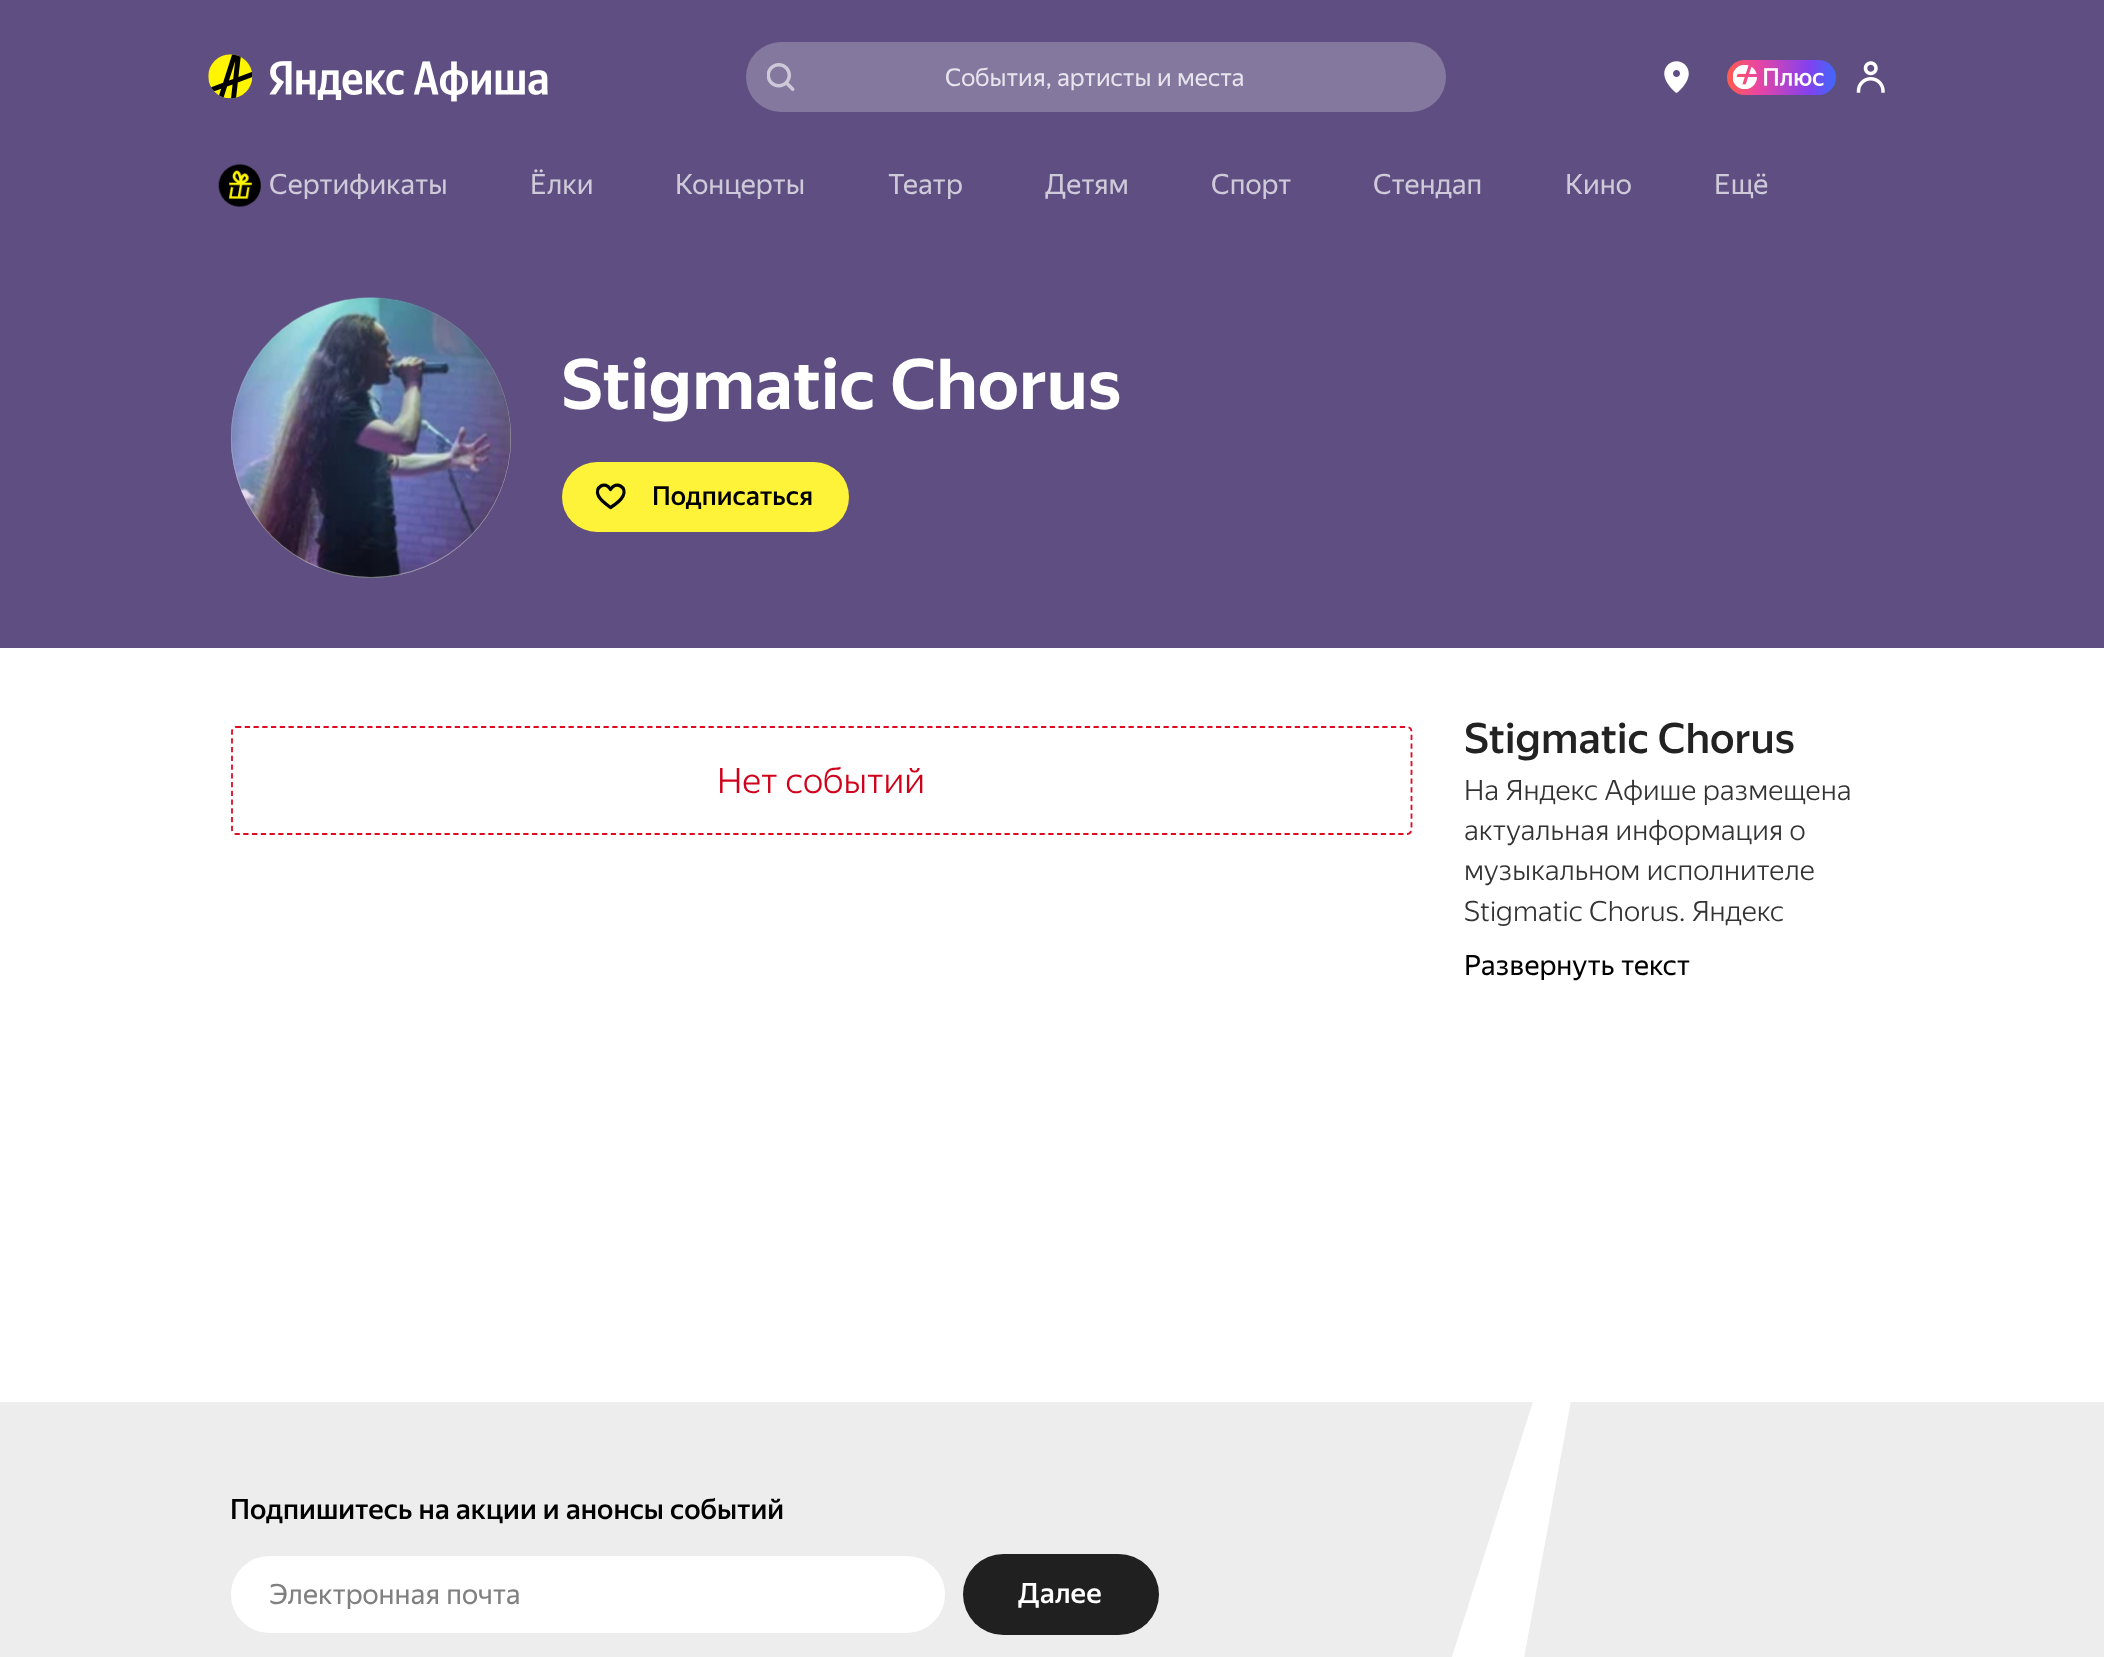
<!DOCTYPE html>
<meta charset="utf-8">
<style>body { margin: 0 } canvas { display: block }</style>
<canvas id="canvas" width="2104" height="1657"></canvas>
<img id="img1" src="img_01.png" hidden>
<img id="img2" src="img_02.png" hidden>
<img id="img3" src="img_03.png" hidden>
<img id="img4" src="img_04.png" hidden>
<img id="img5" src="img_05.png" hidden>
<img id="img6" src="img_06.png" hidden>
<img id="img7" src="img_07.png" hidden>
<img id="img8" src="img_08.png" hidden>
<img id="img9" src="img_09.png" hidden>
<script>
window.onload = function () {
	const canvas = document.getElementById("canvas");
	const ctx = canvas.getContext("2d");
	ctx.miterLimit = 4;
	ctx.fontKerning = "normal";
	function txt(s, x, y) {
		ctx.fillText(s, x, y);
	}
	function fill(x, y, w, h) {
		ctx.fillRect(x, y, w, h);
	}
	function round(x, y, w, h, r) {
		ctx.beginPath();
		ctx.roundRect(x, y, w, h, r);
		ctx.fill();
	}
	function img(id, x, y, w, h) {
		ctx.drawImage(document.getElementById(id), x, y, w, h);
	}
	let gradient;

	ctx.fillStyle = "#FFFFFF";
	fill(0, 0, 2104, 1657);
	ctx.fillStyle = "#5F4E81";
	fill(0, 0, 2104, 648);
	img("img1", 208, 54, 45, 45);
	img("img2", 269, 61, 279, 41);
	img("img3", 767, 63, 28, 28);
	img("img4", 1664, 61, 25, 32);
	gradient = ctx.createLinearGradient(1727, 77, 1836, 77);
	gradient.addColorStop(0, "#FF5C4D");
	gradient.addColorStop(0.27, "#EB469F");
	gradient.addColorStop(0.75, "#8341EF");
	gradient.addColorStop(1, "#3F68F9");
	ctx.fillStyle = gradient;
	round(1727, 60, 109, 35, 17.5);
	img("img5", 1733, 65, 24, 24);
	img("img6", 1764, 68, 60, 18);
	img("img7", 1856, 61, 29, 32);
	img("img8", 218, 164, 43, 43);
	ctx.fillStyle = "#D8D8D8";
	ctx.beginPath();
	ctx.arc(371, 438, 140, 0, Math.PI * 2);
	ctx.fill();
	img("img9", 231, 297, 280, 281);
	ctx.fillStyle = "#FEF339";
	round(562, 462, 287, 70, 35);
	ctx.beginPath();
	ctx.moveTo(610.5, 507.5);
	ctx.bezierCurveTo(607, 505, 600.5, 500, 598.5, 496);
	ctx.bezierCurveTo(594, 487, 605.5, 480.5, 610.5, 489.5);
	ctx.bezierCurveTo(616, 480.5, 627.5, 487, 623, 496);
	ctx.bezierCurveTo(621, 500, 614.5, 505, 610.5, 507.5);
	ctx.closePath();
	ctx.strokeStyle = "#000000";
	ctx.lineWidth = 3.3;
	ctx.lineCap = "square";
	ctx.lineJoin = "round";
	ctx.stroke();
	ctx.beginPath();
	ctx.moveTo(236, 727);
	ctx.lineTo(1407, 727);
	ctx.bezierCurveTo(1409.5, 727, 1411.5, 729, 1411.5, 731.5);
	ctx.lineTo(1411.5, 829.5);
	ctx.bezierCurveTo(1411.5, 832, 1409.5, 834, 1407, 834);
	ctx.lineTo(236, 834);
	ctx.bezierCurveTo(234, 834, 232, 832, 232, 829.5);
	ctx.lineTo(232, 731.5);
	ctx.bezierCurveTo(232, 729, 234, 727, 236, 727);
	ctx.closePath();
	ctx.strokeStyle = "#DF0B22";
	ctx.lineWidth = 1.8;
	ctx.lineCap = "butt";
	ctx.lineJoin = "miter";
	ctx.setLineDash([5.25, 3.5]);
	ctx.stroke();
	ctx.fillStyle = "#EDEDED";
	fill(0, 1402, 2104, 255);
	ctx.fillStyle = "#FFFFFF";
	ctx.beginPath();
	ctx.roundRect(233, 1558, 710, 73, 36.5);
	ctx.fill();
	ctx.strokeStyle = "#FFFFFF";
	ctx.lineWidth = 4;
	ctx.setLineDash([]);
	ctx.stroke();
	ctx.fillStyle = "#202020";
	round(963, 1554, 196, 81, 40.5);
	ctx.save();
	ctx.beginPath();
	ctx.rect(1139, 1402, 433, 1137);
	ctx.clip();
	ctx.fillStyle = "#FFFFFF";
	ctx.beginPath();
	ctx.moveTo(1282, 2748);
	ctx.lineTo(1517, 1461);
	ctx.lineTo(1533, 1401);
	ctx.lineTo(1571, 1401);
	ctx.lineTo(1323, 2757);
	ctx.closePath();
	ctx.fill("evenodd");
	ctx.restore();
	ctx.fillStyle = "#FFFFFF";
	ctx.beginPath();
	ctx.moveTo(1094, 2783);
	ctx.lineTo(1531, 1408);
	ctx.lineTo(1569, 1408);
	ctx.lineTo(1555, 1474);
	ctx.lineTo(1135, 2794);
	ctx.closePath();
	ctx.fill("evenodd");
	ctx.font = "24.5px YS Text";
	ctx.fillStyle = "#DFDCE6";
	txt("События, артисты и места", 945, 86);
	ctx.fillStyle = "rgba(255, 255, 255, 0.24)";
	round(746, 42, 700, 70, 35);
	ctx.font = "28px YS Text";
	ctx.fillStyle = "#CFCAD9";
	txt("Сертификаты", 269, 194);
	txt("Ёлки", 530, 194);
	txt("Концерты", 675, 194);
	txt("Театр", 888, 194);
	txt("Детям", 1045, 194);
	txt("Спорт", 1211, 194);
	txt("Стендап", 1373, 194);
	txt("Кино", 1565, 194);
	txt("Ещё", 1714, 194);
	ctx.font = "bold 70px YS Text";
	ctx.fillStyle = "#FFFFFF";
	txt("Stigmatic Chorus", 561, 409);
	ctx.font = "500 26.25px YS Text";
	ctx.fillStyle = "#000000";
	txt("Подписаться", 652, 505);
	ctx.font = "300 35px YS Text";
	ctx.fillStyle = "#D0021B";
	txt("Нет событий", 717, 793);
	ctx.font = "500 42px YS Text";
	ctx.fillStyle = "#222222";
	txt("Stigmatic Chorus", 1464, 753);
	ctx.font = "300 28px YS Text";
	ctx.fillStyle = "#333333";
	txt("На Яндекс Афише размещена", 1464, 800);
	txt("актуальная информация о", 1464, 840);
	txt("музыкальном исполнителе", 1464, 880);
	txt("Stigmatic Chorus. Яндекс", 1464, 921);
	ctx.font = "28px YS Text";
	ctx.fillStyle = "#000000";
	txt("Развернуть текст", 1464, 975);
	ctx.font = "500 28px YS Text";
	txt("Подпишитесь на акции и анонсы событий", 230, 1519);
	ctx.font = "28px YS Text";
	ctx.fillStyle = "#808080";
	txt("Электронная почта", 269, 1604);
	ctx.font = "500 28px YS Text";
	ctx.fillStyle = "#FFFFFF";
	txt("Далее", 1018, 1603);
};
</script>
